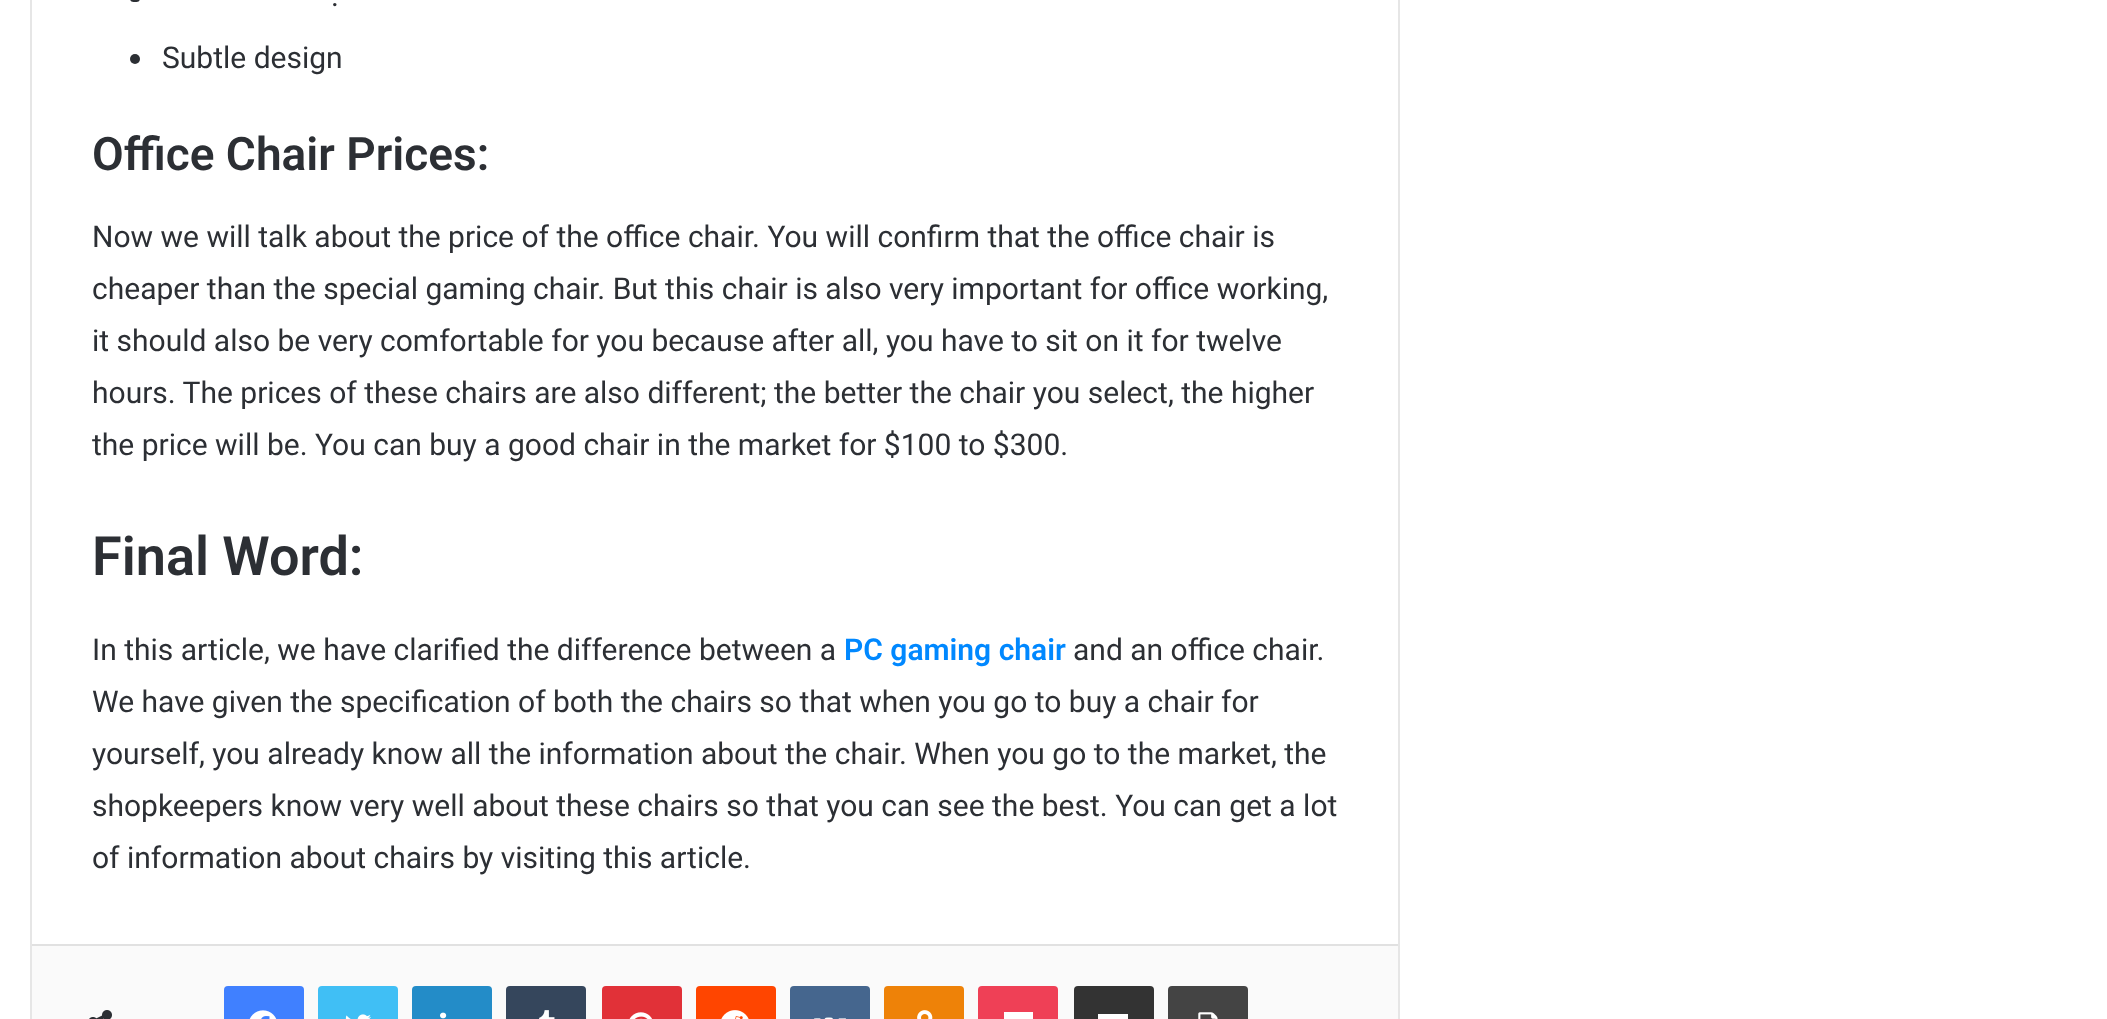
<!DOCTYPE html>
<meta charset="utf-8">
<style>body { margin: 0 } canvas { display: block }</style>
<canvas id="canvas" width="2107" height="1019"></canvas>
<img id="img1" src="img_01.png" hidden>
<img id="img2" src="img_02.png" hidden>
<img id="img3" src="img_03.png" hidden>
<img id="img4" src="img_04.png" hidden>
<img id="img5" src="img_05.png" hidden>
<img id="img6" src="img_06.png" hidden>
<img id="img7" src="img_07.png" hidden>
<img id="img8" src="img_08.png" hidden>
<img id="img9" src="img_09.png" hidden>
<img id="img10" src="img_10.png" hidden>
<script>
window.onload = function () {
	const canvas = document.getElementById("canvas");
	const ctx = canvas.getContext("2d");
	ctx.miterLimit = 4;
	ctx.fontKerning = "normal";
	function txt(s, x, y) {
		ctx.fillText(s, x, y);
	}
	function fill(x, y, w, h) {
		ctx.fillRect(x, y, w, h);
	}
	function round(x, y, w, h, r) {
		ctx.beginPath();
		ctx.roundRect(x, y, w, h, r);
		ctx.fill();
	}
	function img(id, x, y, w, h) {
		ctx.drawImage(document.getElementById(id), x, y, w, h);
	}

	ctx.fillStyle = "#FFFFFF";
	fill(0, 0, 2107, 1019);
	ctx.strokeStyle = "#E6E6E6";
	ctx.lineWidth = 2;
	ctx.strokeRect(31, -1, 1368, 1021);
	ctx.fillStyle = "#2C2F34";
	round(130, -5, 10, 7, 5);
	ctx.beginPath();
	ctx.arc(135, 59, 5, 0, Math.PI * 2);
	ctx.fill();
	ctx.fillStyle = "#FAFAFA";
	fill(32, 946, 1366, 73);
	ctx.fillStyle = "#E1E1E1";
	fill(32, 944, 1366, 2);
	img("img1", 89, 1010, 23, 9);
	ctx.fillStyle = "#4080FF";
	round(224, 986, 80, 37, 4);
	img("img2", 249, 1010, 28, 9);
	ctx.fillStyle = "#40BFF5";
	round(318, 986, 80, 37, 4);
	img("img3", 345, 1014, 26, 5);
	ctx.fillStyle = "#238CC8";
	round(412, 986, 80, 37, 4);
	img("img4", 440, 1012, 7, 7);
	ctx.fillStyle = "#35465C";
	round(506, 986, 80, 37, 4);
	img("img5", 539, 1010, 16, 9);
	ctx.fillStyle = "#E13138";
	round(602, 986, 80, 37, 4);
	img("img6", 629, 1012, 23, 7);
	ctx.fillStyle = "#FF4500";
	round(696, 986, 80, 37, 4);
	img("img7", 721, 1010, 28, 9);
	ctx.fillStyle = "#45668E";
	round(790, 986, 80, 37, 4);
	img("img8", 814, 1017, 32, 2);
	ctx.fillStyle = "#EE8208";
	round(884, 986, 80, 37, 4);
	img("img9", 917, 1010, 16, 9);
	ctx.fillStyle = "#EF4056";
	round(978, 986, 80, 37, 4);
	ctx.fillStyle = "#FFFFFF";
	fill(1004, 1012, 29, 7);
	ctx.fillStyle = "#333333";
	round(1074, 986, 80, 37, 4);
	ctx.fillStyle = "#FFFFFF";
	fill(1098, 1014, 30, 5);
	ctx.fillStyle = "#444444";
	round(1168, 986, 80, 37, 4);
	img("img10", 1198, 1012, 20, 7);
	ctx.font = "30px Roboto";
	ctx.fillStyle = "#2C2F34";
	txt(".", 331, 6);
	txt("Subtle design", 162, 68);
	ctx.font = "600 46px Roboto";
	txt("Office Chair Prices:", 92, 170);
	ctx.font = "30px Roboto";
	txt("Now we will talk about the price of the office chair. You will confirm that the office chair is", 92, 247);
	txt("cheaper than the special gaming chair. But this chair is also very important for office working,", 92, 299);
	txt("it should also be very comfortable for you because after all, you have to sit on it for twelve", 92, 351);
	txt("hours. The prices of these chairs are also different; the better the chair you select, the higher", 92, 403);
	txt("the price will be. You can buy a good chair in the market for $100 to $300.", 92, 455);
	ctx.font = "600 54px Roboto";
	txt("Final Word:", 92, 575);
	ctx.font = "30px Roboto";
	txt("In this article, we have clarified the difference between a", 92, 660);
	ctx.font = "600 30px Roboto";
	ctx.fillStyle = "#0088FF";
	txt("PC gaming chair", 844, 660);
	ctx.font = "30px Roboto";
	ctx.fillStyle = "#2C2F34";
	txt("and an office chair.", 1073, 660);
	txt("We have given the specification of both the chairs so that when you go to buy a chair for", 92, 712);
	txt("yourself, you already know all the information about the chair. When you go to the market, the", 92, 764);
	txt("shopkeepers know very well about these chairs so that you can see the best. You can get a lot", 92, 816);
	txt("of information about chairs by visiting this article.", 92, 868);
};
</script>
